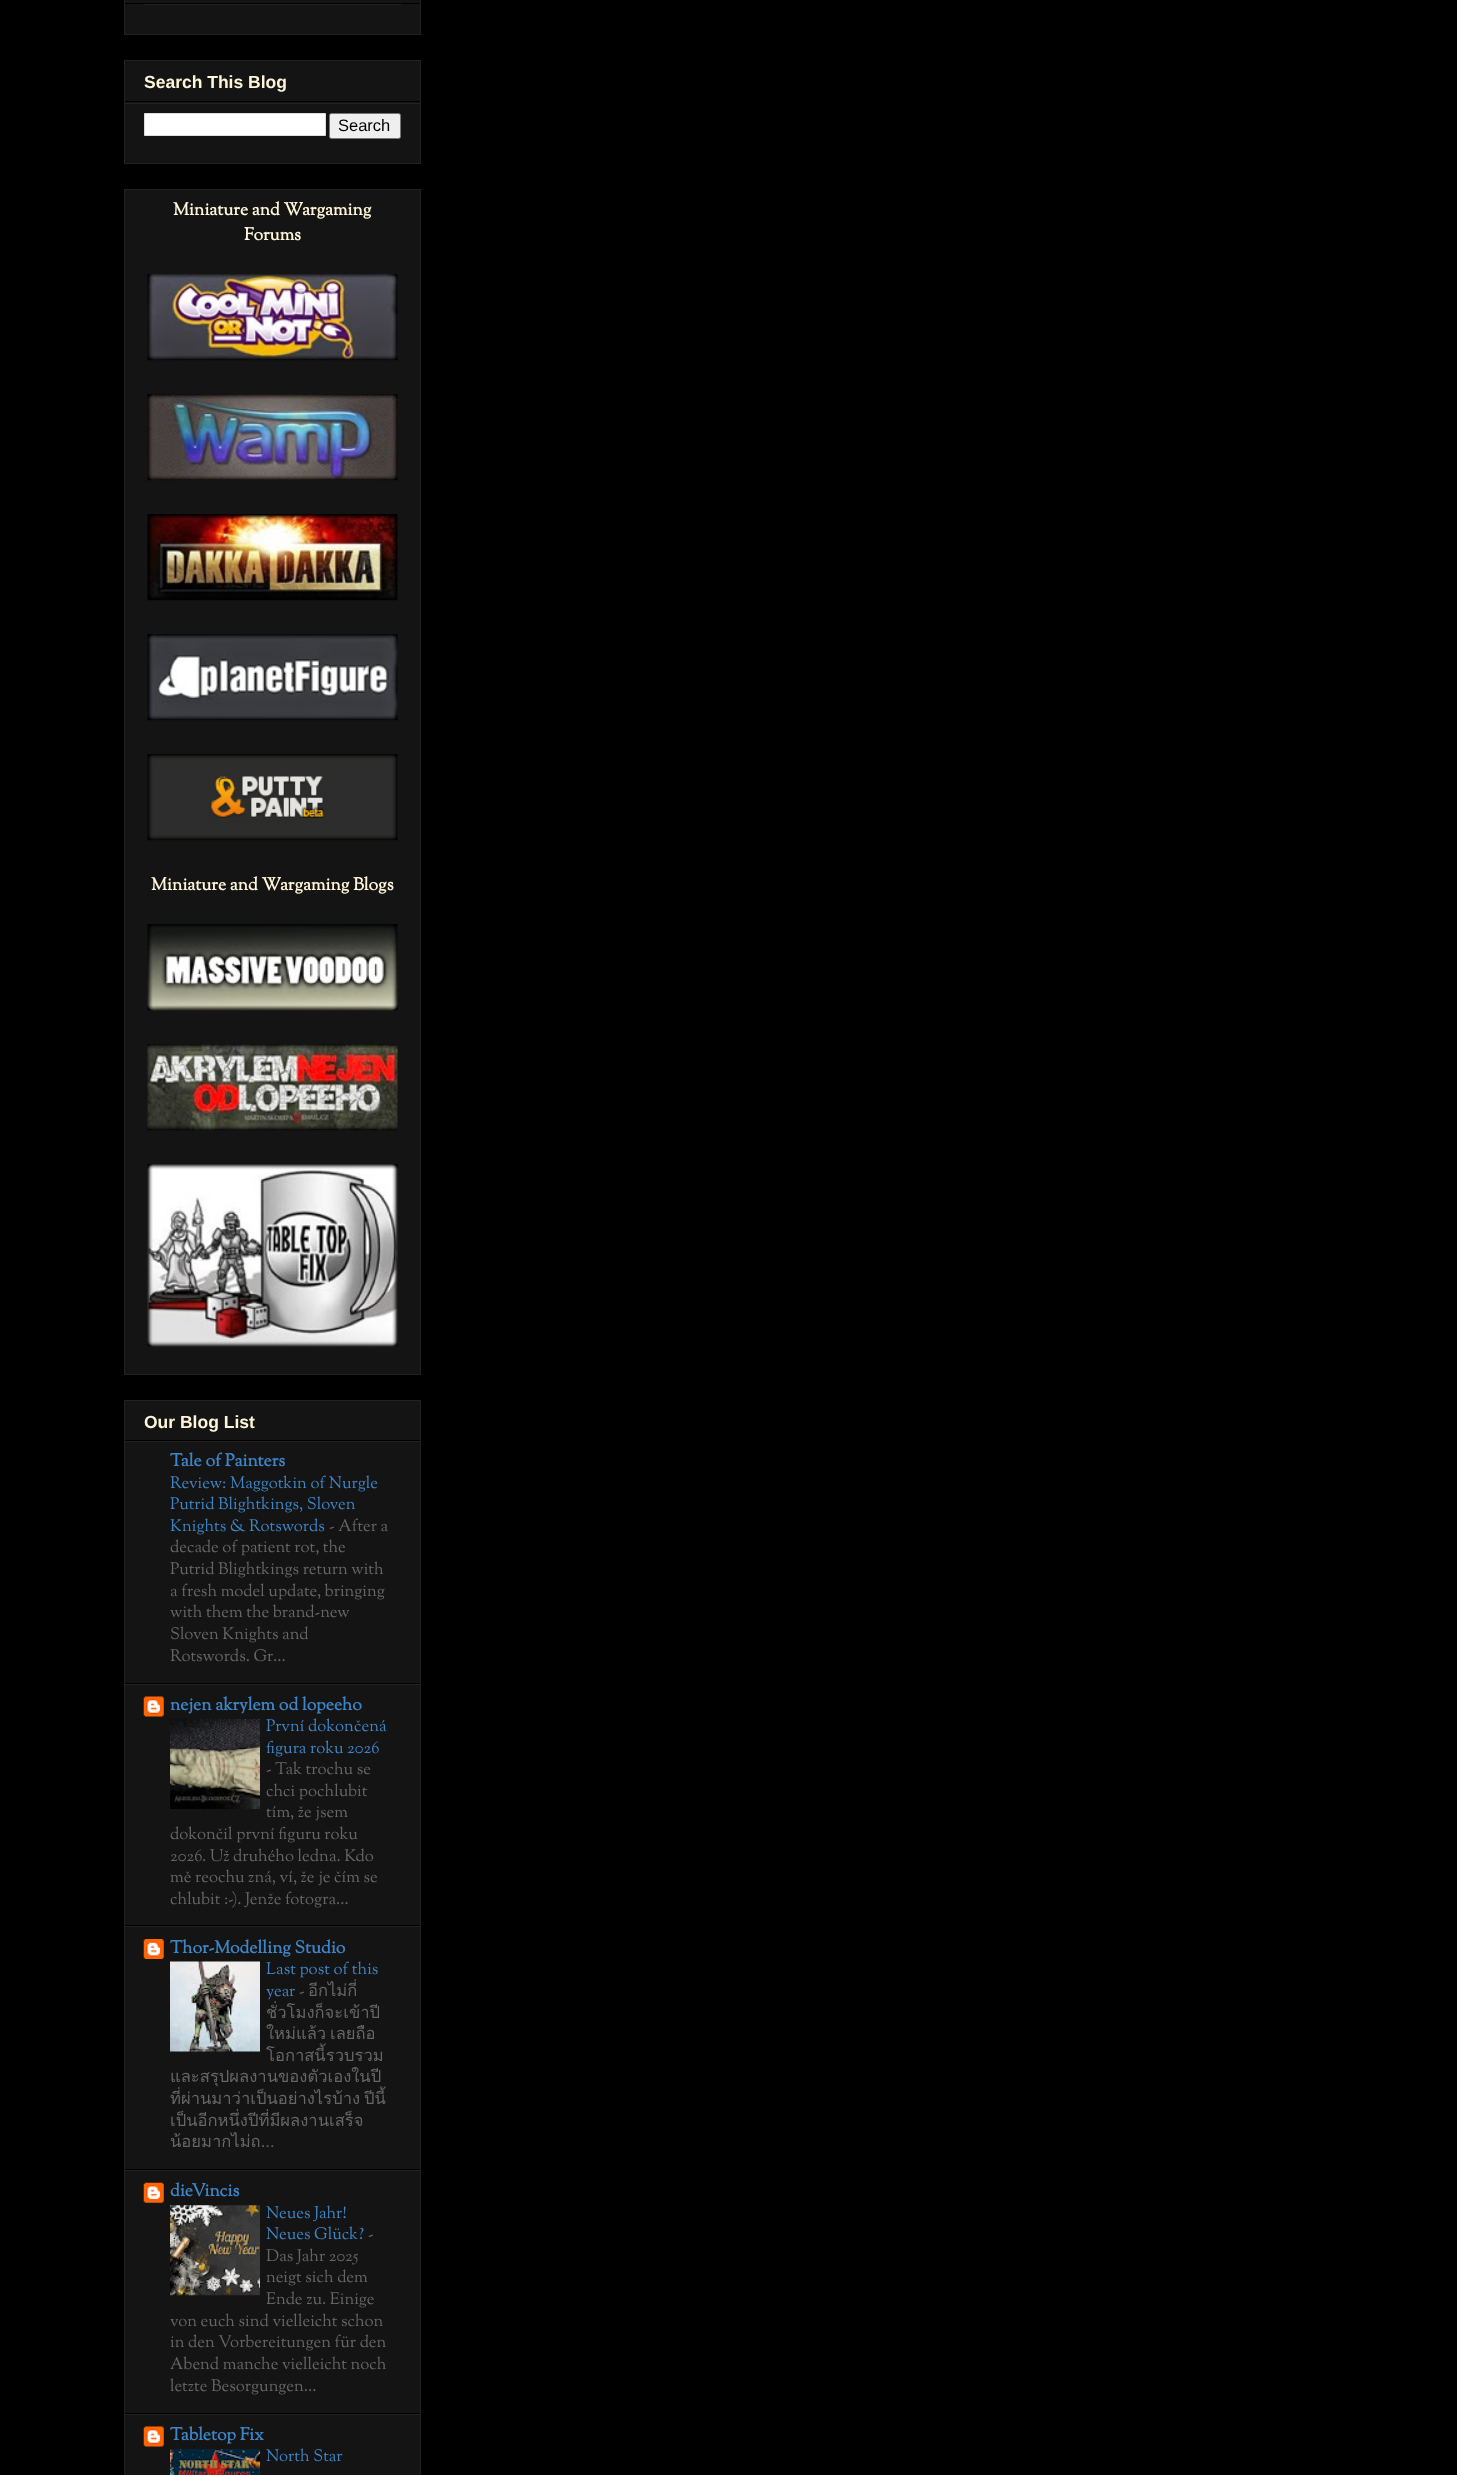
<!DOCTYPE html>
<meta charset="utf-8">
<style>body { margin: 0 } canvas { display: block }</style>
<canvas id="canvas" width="1457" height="2475"></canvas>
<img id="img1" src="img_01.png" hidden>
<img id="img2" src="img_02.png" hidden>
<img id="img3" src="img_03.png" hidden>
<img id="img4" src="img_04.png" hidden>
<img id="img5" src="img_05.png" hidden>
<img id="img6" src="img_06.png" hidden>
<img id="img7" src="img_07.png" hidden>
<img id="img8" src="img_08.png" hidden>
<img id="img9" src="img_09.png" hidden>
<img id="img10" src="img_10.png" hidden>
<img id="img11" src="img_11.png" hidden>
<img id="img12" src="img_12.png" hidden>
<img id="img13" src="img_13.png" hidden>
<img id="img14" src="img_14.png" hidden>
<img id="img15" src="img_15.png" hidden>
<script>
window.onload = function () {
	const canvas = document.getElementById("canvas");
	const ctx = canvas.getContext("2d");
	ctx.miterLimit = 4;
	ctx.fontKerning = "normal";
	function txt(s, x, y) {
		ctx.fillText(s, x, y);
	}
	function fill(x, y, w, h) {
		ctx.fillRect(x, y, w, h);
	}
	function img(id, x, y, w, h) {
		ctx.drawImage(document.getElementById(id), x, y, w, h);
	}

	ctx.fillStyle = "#000000";
	fill(0, 0, 1457, 2475);
	ctx.fillStyle = "#141414";
	ctx.beginPath();
	ctx.rect(124.5, -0.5, 296, 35);
	ctx.fill();
	ctx.strokeStyle = "#222222";
	ctx.stroke();
	ctx.fillStyle = "#000000";
	fill(125, 3, 295, 1);
	ctx.fillStyle = "#222222";
	fill(144, 4, 257, 1);
	ctx.fillStyle = "#141414";
	ctx.beginPath();
	ctx.rect(124.5, 60.5, 296, 103);
	ctx.fill();
	ctx.stroke();
	ctx.fillStyle = "#000000";
	fill(125, 101, 295, 1);
	ctx.fillStyle = "#222222";
	fill(125, 103, 295, 1);
	ctx.fillStyle = "#FFFFFF";
	ctx.beginPath();
	ctx.rect(144.5, 113.5, 181, 22);
	ctx.fill();
	ctx.strokeStyle = "#DDDDDD";
	ctx.stroke();
	ctx.fillStyle = "#EFEFEF";
	ctx.beginPath();
	ctx.roundRect(329.5, 113.5, 71, 25, 2);
	ctx.fill();
	ctx.strokeStyle = "#767676";
	ctx.stroke();
	ctx.fillStyle = "#141414";
	ctx.beginPath();
	ctx.rect(124.5, 189.5, 296, 1185);
	ctx.fill();
	ctx.strokeStyle = "#222222";
	ctx.stroke();
	img("img1", 147, 274, 251, 87);
	img("img2", 147, 394, 251, 87);
	img("img3", 147, 514, 251, 87);
	img("img4", 147, 634, 251, 87);
	img("img5", 147, 754, 251, 87);
	img("img6", 147, 924, 251, 87);
	img("img7", 147, 1044, 251, 87);
	img("img8", 147, 1164, 251, 183);
	ctx.beginPath();
	ctx.rect(124.5, 1400.5, 296, 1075);
	ctx.fill();
	ctx.stroke();
	ctx.fillStyle = "#000000";
	fill(125, 1440, 295, 1);
	ctx.fillStyle = "#222222";
	fill(125, 1441, 295, 1);
	ctx.fillStyle = "#000000";
	fill(125, 1683, 295, 1);
	ctx.fillStyle = "#222222";
	fill(125, 1684, 295, 1);
	ctx.fillStyle = "#000000";
	fill(125, 1925, 295, 1);
	img("img9", 143, 1696, 21, 21);
	img("img10", 170, 1719, 90, 90);
	ctx.fillStyle = "#222222";
	fill(125, 1926, 295, 1);
	ctx.fillStyle = "#000000";
	fill(125, 2169, 295, 1);
	img("img11", 143, 1939, 21, 20);
	img("img12", 170, 1961, 90, 91);
	ctx.fillStyle = "#222222";
	fill(125, 2170, 295, 1);
	ctx.fillStyle = "#000000";
	fill(125, 2413, 295, 1);
	img("img13", 143, 2182, 21, 21);
	img("img14", 170, 2205, 90, 91);
	ctx.fillStyle = "#222222";
	fill(125, 2414, 295, 1);
	img("img9", 143, 2426, 21, 21);
	img("img15", 170, 2449, 90, 26);
	ctx.font = "bold 17.5px Liberation Sans";
	ctx.fillStyle = "#FFF5D8";
	txt("Search This Blog", 144, 88);
	ctx.font = "16.5px Liberation Sans";
	ctx.fillStyle = "#000000";
	txt("Search", 338, 131);
	ctx.font = "bold 17.5px Sorts Mill Goudy";
	ctx.fillStyle = "#FFF5D8";
	txt("Miniature and Wargaming", 173, 215);
	txt("Forums", 244, 240);
	txt("Miniature and Wargaming Blogs", 151, 890);
	ctx.font = "bold 17.5px Liberation Sans";
	txt("Our Blog List", 144, 1428);
	ctx.font = "bold 17.5px Sorts Mill Goudy";
	ctx.fillStyle = "#3D85C6";
	txt("Tale of Painters", 170, 1466);
	ctx.font = "16.6px Sorts Mill Goudy";
	txt("Review: Maggotkin of Nurgle", 170, 1488);
	txt("Putrid Blightkings, Sloven", 170, 1509);
	txt("Knights & Rotswords", 170, 1531);
	ctx.fillStyle = "#666666";
	txt("- After a", 329, 1531);
	txt("decade of patient rot, the", 170, 1552);
	txt("Putrid Blightkings return with", 170, 1574);
	txt("a fresh model update, bringing", 170, 1596);
	txt("with them the brand-new", 170, 1617);
	txt("Sloven Knights and", 170, 1639);
	txt("Rotswords. Gr...", 170, 1661);
	ctx.font = "bold 17.5px Sorts Mill Goudy";
	ctx.fillStyle = "#3D85C6";
	txt("nejen akrylem od lopeeho", 170, 1710);
	ctx.font = "16.6px Sorts Mill Goudy";
	txt("První dokončená", 266, 1731);
	txt("figura roku 2026", 266, 1753);
	ctx.fillStyle = "#666666";
	txt("- Tak trochu se", 266, 1774);
	txt("chci pochlubit", 266, 1796);
	txt("tím, že jsem", 266, 1817);
	txt("dokončil první figuru roku", 170, 1839);
	txt("2026. Už druhého ledna. Kdo", 170, 1861);
	txt("mě reochu zná, ví, že je čím se", 170, 1882);
	txt("chlubit :-). Jenže fotogra...", 170, 1904);
	ctx.font = "bold 17.5px Sorts Mill Goudy";
	ctx.fillStyle = "#3D85C6";
	txt("Thor-Modelling Studio", 170, 1953);
	ctx.font = "16.6px Sorts Mill Goudy";
	txt("Last post of this", 266, 1974);
	txt("year", 266, 1996);
	ctx.fillStyle = "#666666";
	txt("-", 299, 1996);
	ctx.font = "16.6px Loma";
	txt("อีกไม่กี่", 308, 1996);
	txt("ชั่วโมงก็จะเข้าปี", 266, 2018);
	txt("ใหม่แล้ว", 266, 2039);
	txt("เลยถือ", 330, 2039);
	txt("โอกาสนี้รวบรวม", 266, 2061);
	txt("และสรุปผลงานของตัวเองในปี", 170, 2082);
	txt("ที่ผ่านมาว่าเป็นอย่างไรบ้าง", 170, 2104);
	txt("ปีนี้", 364, 2104);
	txt("เป็นอีกหนึ่งปีที่มีผลงานเสร็จ", 170, 2126);
	txt("น้อยมากไม่ถ...", 170, 2147);
	ctx.font = "bold 17.5px Sorts Mill Goudy";
	ctx.fillStyle = "#3D85C6";
	txt("dieVincis", 170, 2196);
	ctx.font = "16.6px Sorts Mill Goudy";
	txt("Neues Jahr!", 266, 2218);
	txt("Neues Glück?", 266, 2239);
	ctx.fillStyle = "#666666";
	txt("-", 368, 2239);
	txt("Das Jahr 2025", 266, 2261);
	txt("neigt sich dem", 266, 2282);
	txt("Ende zu. Einige", 266, 2304);
	txt("von euch sind vielleicht schon", 170, 2326);
	txt("in den Vorbereitungen für den", 170, 2347);
	txt("Abend manche vielleicht noch", 170, 2369);
	txt("letzte Besorgungen...", 170, 2391);
	ctx.font = "bold 17.5px Sorts Mill Goudy";
	ctx.fillStyle = "#3D85C6";
	txt("Tabletop Fix", 170, 2440);
	ctx.font = "16.6px Sorts Mill Goudy";
	txt("North Star", 266, 2461);
};
</script>
